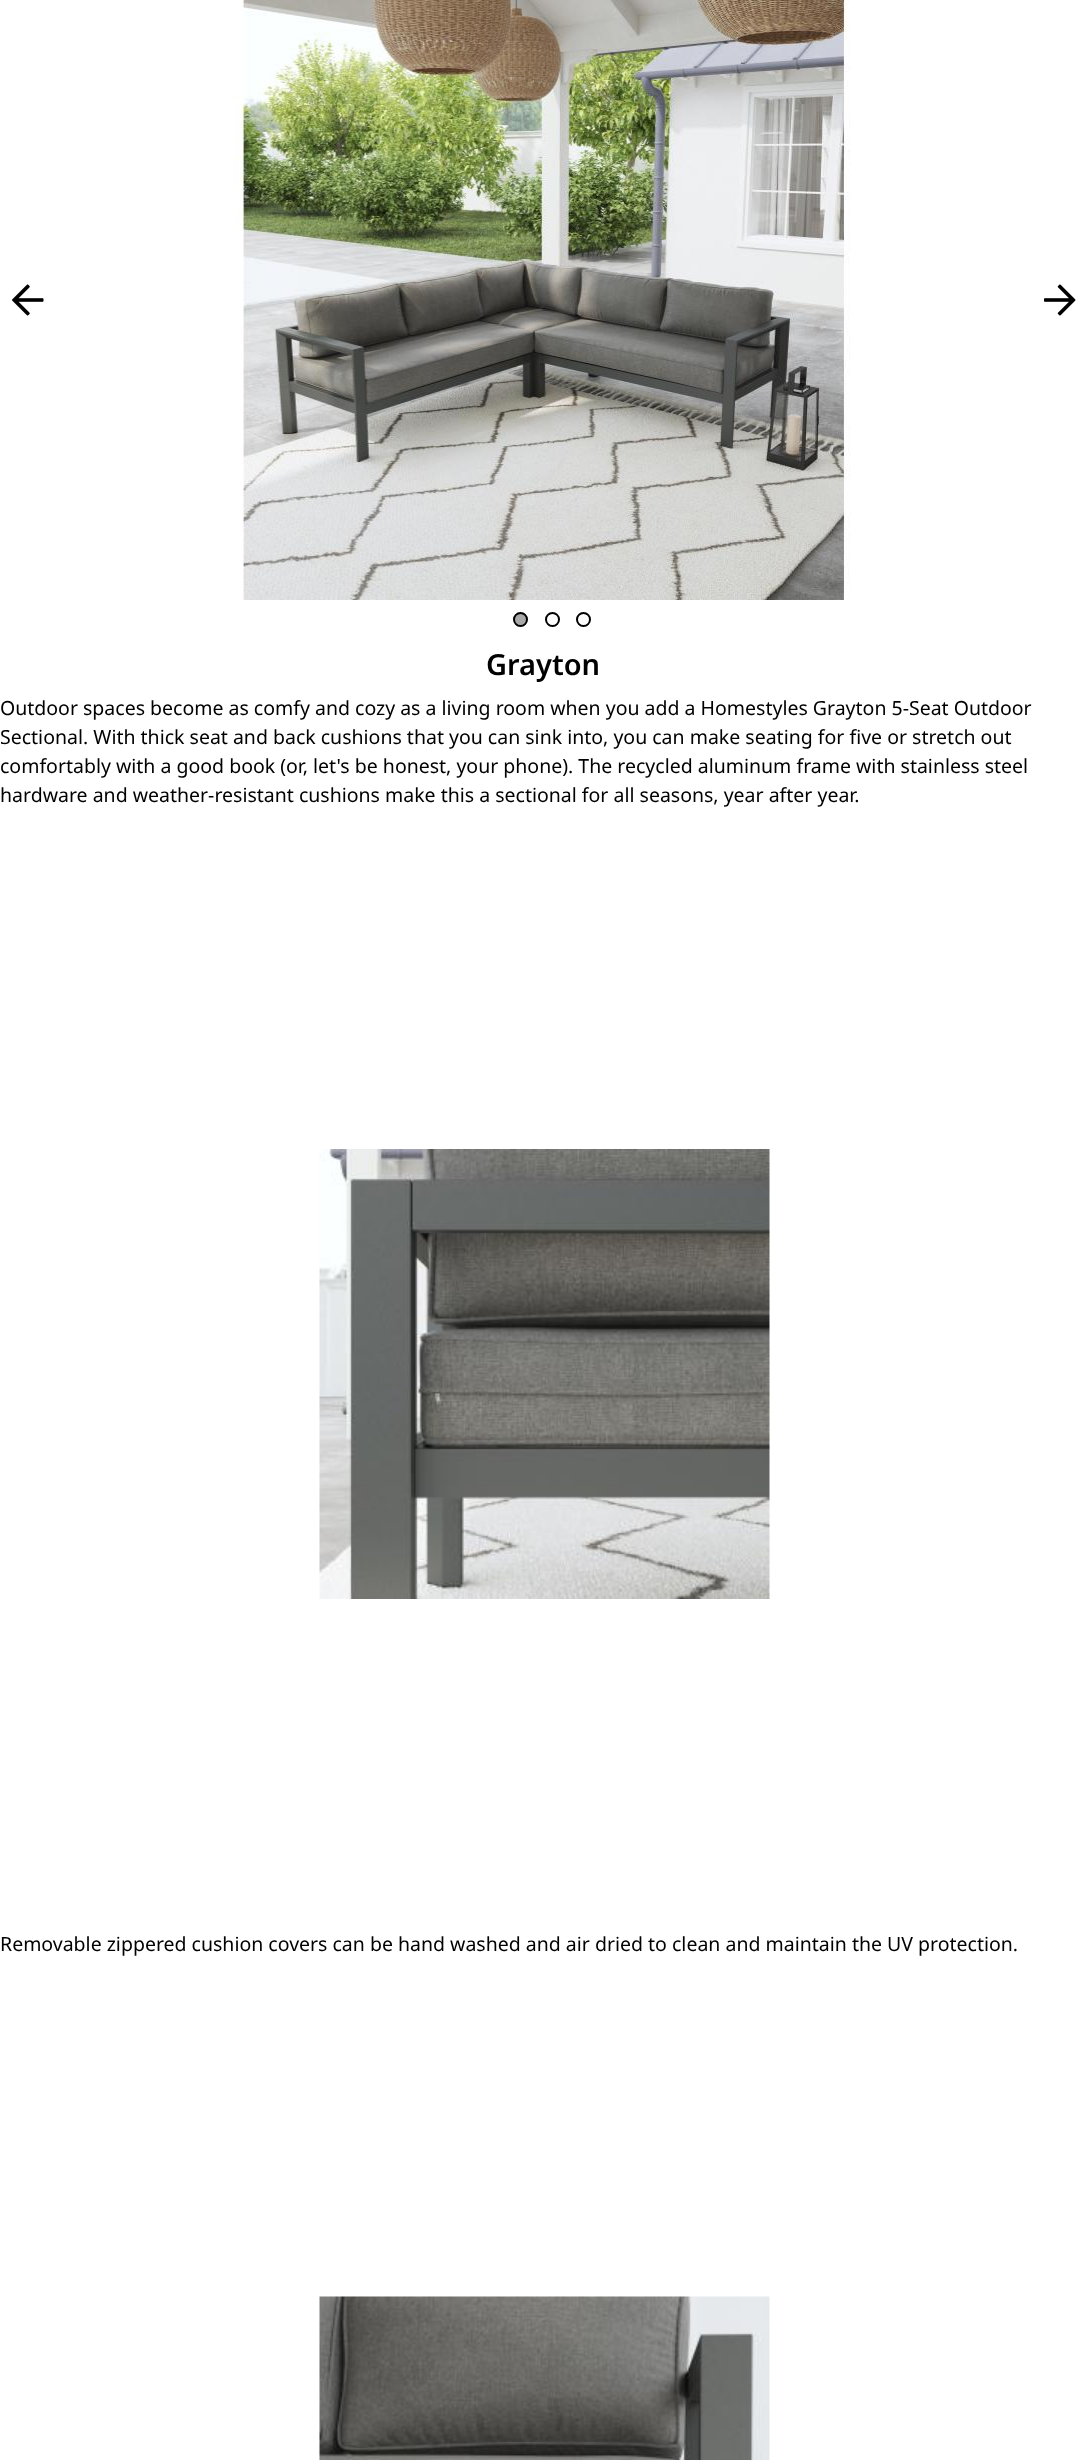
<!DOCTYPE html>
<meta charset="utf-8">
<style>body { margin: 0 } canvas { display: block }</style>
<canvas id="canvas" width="1087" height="2460"></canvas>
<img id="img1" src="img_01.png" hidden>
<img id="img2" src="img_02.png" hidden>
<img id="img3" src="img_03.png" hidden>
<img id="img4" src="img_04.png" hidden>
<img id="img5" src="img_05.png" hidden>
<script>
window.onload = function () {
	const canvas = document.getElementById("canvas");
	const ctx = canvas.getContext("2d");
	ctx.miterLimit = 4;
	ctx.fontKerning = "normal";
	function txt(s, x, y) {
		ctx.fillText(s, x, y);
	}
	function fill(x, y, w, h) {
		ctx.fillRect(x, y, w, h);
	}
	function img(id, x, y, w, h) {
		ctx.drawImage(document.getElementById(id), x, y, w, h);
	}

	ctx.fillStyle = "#FFFFFF";
	fill(0, 0, 1087, 2460);
	img("img1", 12, 284, 32, 32);
	img("img2", 234, 0, 617, 600);
	img("img3", 1044, 284, 32, 32);
	ctx.fillStyle = "#A9A9A9";
	ctx.beginPath();
	ctx.arc(520.5, 619.5, 6.5, 0, Math.PI * 2);
	ctx.fill();
	ctx.strokeStyle = "#000000";
	ctx.lineWidth = 2;
	ctx.stroke();
	ctx.beginPath();
	ctx.arc(552.5, 619.5, 6.5, 0, Math.PI * 2);
	ctx.stroke();
	ctx.beginPath();
	ctx.arc(583.5, 619.5, 6.5, 0, Math.PI * 2);
	ctx.stroke();
	img("img4", 319, 1149, 451, 450);
	img("img5", 319, 2296, 451, 164);
	ctx.font = "600 29px Noto Sans";
	ctx.fillStyle = "#000000";
	txt("Grayton", 486, 675);
	ctx.font = "19.5px Noto Sans";
	txt("Outdoor spaces become as comfy and cozy as a living room when you add a Homestyles Grayton 5-Seat Outdoor", 0, 715);
	txt("Sectional. With thick seat and back cushions that you can sink into, you can make seating for five or stretch out", 0, 744);
	txt("comfortably with a good book (or, let's be honest, your phone). The recycled aluminum frame with stainless steel", 0, 773);
	txt("hardware and weather-resistant cushions make this a sectional for all seasons, year after year.", 0, 802);
	txt("Removable zippered cushion covers can be hand washed and air dried to clean and maintain the UV protection.", 0, 1951);
};
</script>
